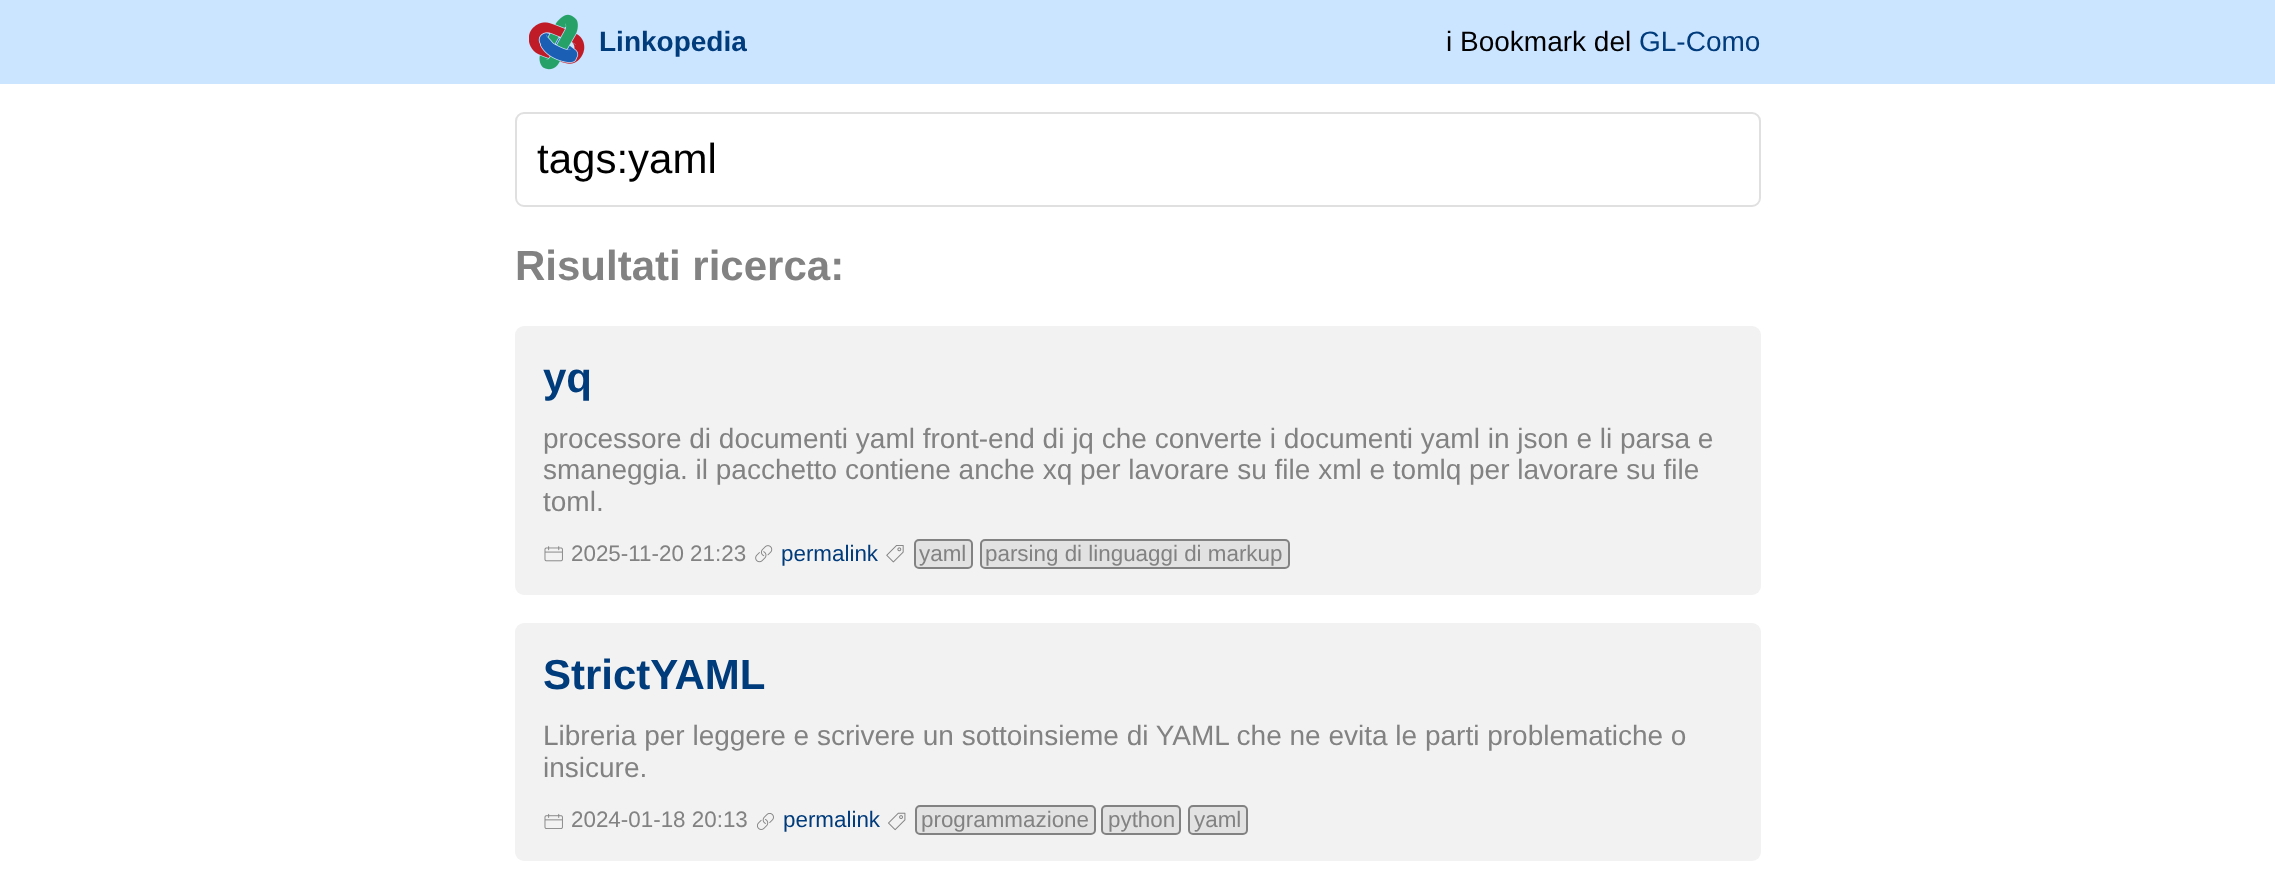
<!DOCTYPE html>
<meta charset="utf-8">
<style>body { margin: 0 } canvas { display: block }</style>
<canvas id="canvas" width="2275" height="887"></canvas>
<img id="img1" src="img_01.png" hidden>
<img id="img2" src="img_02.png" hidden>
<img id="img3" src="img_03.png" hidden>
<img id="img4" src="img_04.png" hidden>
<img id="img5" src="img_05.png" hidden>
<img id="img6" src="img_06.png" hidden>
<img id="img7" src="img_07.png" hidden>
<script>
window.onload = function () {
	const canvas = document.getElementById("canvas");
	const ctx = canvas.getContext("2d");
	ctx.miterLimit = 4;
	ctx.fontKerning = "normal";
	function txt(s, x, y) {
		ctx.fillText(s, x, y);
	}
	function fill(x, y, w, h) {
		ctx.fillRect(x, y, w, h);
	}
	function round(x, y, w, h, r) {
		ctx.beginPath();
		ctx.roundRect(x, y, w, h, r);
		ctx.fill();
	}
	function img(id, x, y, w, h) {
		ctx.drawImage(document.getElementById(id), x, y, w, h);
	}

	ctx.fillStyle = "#FFFFFF";
	fill(0, 0, 2275, 887);
	ctx.fillStyle = "#CBE4FF";
	fill(0, 0, 2275, 84);
	img("img1", 529, 14, 56, 56);
	ctx.beginPath();
	ctx.roundRect(516, 113, 1244, 93, 8);
	ctx.strokeStyle = "#E0E0E0";
	ctx.lineWidth = 2;
	ctx.stroke();
	ctx.fillStyle = "#F2F2F2";
	round(515, 326, 1246, 269, 9);
	img("img2", 544, 546, 19, 16);
	img("img3", 755, 545, 18, 18);
	img("img4", 886, 545, 18, 18);
	ctx.fillStyle = "#E2E2E2";
	ctx.beginPath();
	ctx.roundRect(915, 540, 57, 28, 4);
	ctx.fill();
	ctx.strokeStyle = "#828282";
	ctx.stroke();
	ctx.beginPath();
	ctx.roundRect(981, 540, 308, 28, 4);
	ctx.fill();
	ctx.stroke();
	ctx.fillStyle = "#F2F2F2";
	round(515, 623, 1246, 238, 9);
	img("img5", 544, 813, 19, 16);
	img("img6", 757, 813, 17, 17);
	img("img7", 888, 812, 18, 19);
	ctx.fillStyle = "#E2E2E2";
	ctx.beginPath();
	ctx.roundRect(916, 806, 179, 28, 4);
	ctx.fill();
	ctx.stroke();
	ctx.beginPath();
	ctx.roundRect(1102, 806, 78, 28, 4);
	ctx.fill();
	ctx.stroke();
	ctx.beginPath();
	ctx.roundRect(1189, 806, 58, 28, 4);
	ctx.fill();
	ctx.stroke();
	ctx.font = "bold 28px Liberation Sans";
	ctx.fillStyle = "#003B7B";
	txt("Linkopedia", 599, 51);
	ctx.font = "28px Liberation Sans";
	ctx.fillStyle = "#000000";
	txt("i Bookmark del", 1446, 51);
	ctx.fillStyle = "#003B7B";
	txt("GL-Como", 1639, 51);
	ctx.font = "42px Liberation Sans";
	ctx.fillStyle = "#000000";
	txt("tags:yaml", 537, 173);
	ctx.font = "bold 42px Liberation Sans";
	ctx.fillStyle = "#828282";
	txt("Risultati ricerca:", 515, 280);
	ctx.fillStyle = "#003B7B";
	txt("yq", 543, 392);
	ctx.font = "28px Liberation Sans";
	ctx.fillStyle = "#828282";
	txt("processore di documenti yaml front-end di jq che converte i documenti yaml in json e li parsa e", 543, 448);
	txt("smaneggia. il pacchetto contiene anche xq per lavorare su file xml e tomlq per lavorare su file", 543, 479);
	txt("toml.", 543, 511);
	ctx.font = "22.4px Liberation Sans";
	txt("2025-11-20 21:23", 571, 561);
	ctx.fillStyle = "#003B7B";
	txt("permalink", 781, 561);
	ctx.fillStyle = "#828282";
	txt("yaml", 919, 561);
	txt("parsing di linguaggi di markup", 985, 561);
	ctx.font = "bold 42px Liberation Sans";
	ctx.fillStyle = "#003B7B";
	txt("StrictYAML", 543, 689);
	ctx.font = "28px Liberation Sans";
	ctx.fillStyle = "#828282";
	txt("Libreria per leggere e scrivere un sottoinsieme di YAML che ne evita le parti problematiche o", 543, 745);
	txt("insicure.", 543, 777);
	ctx.font = "22.4px Liberation Sans";
	txt("2024-01-18 20:13", 571, 827);
	ctx.fillStyle = "#003B7B";
	txt("permalink", 783, 827);
	ctx.fillStyle = "#828282";
	txt("programmazione", 921, 827);
	txt("python", 1108, 827);
	txt("yaml", 1194, 827);
};
</script>
